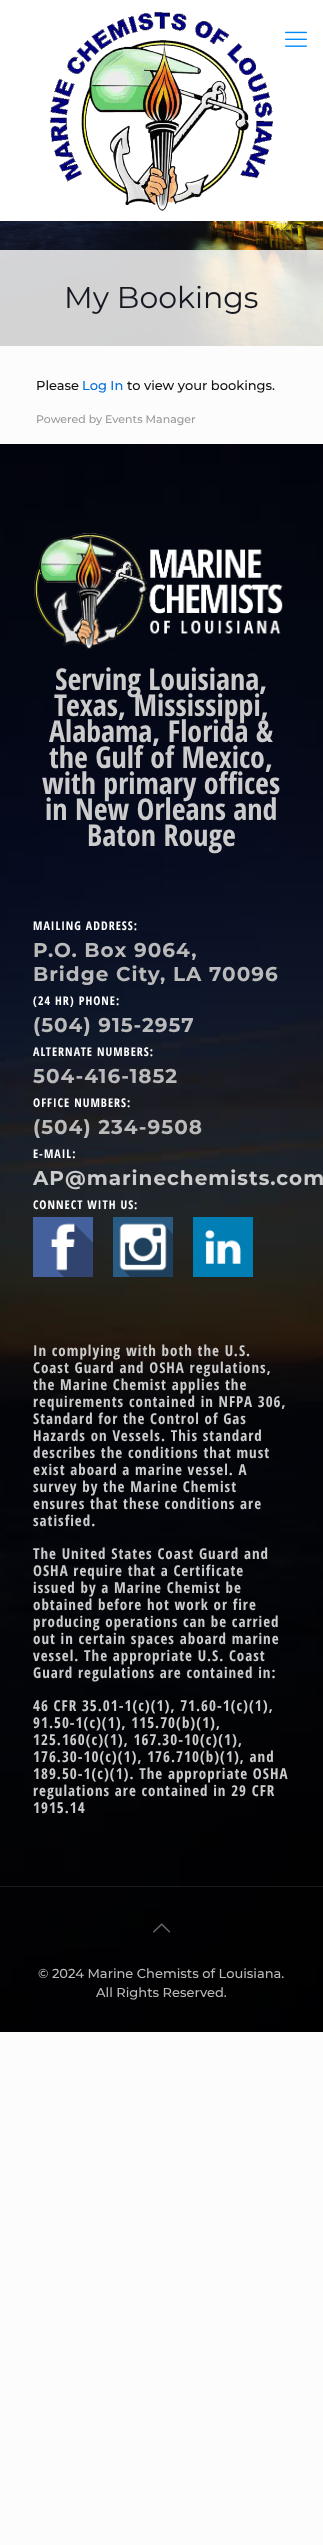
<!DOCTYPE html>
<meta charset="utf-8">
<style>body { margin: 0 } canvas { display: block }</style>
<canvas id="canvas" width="323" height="2545"></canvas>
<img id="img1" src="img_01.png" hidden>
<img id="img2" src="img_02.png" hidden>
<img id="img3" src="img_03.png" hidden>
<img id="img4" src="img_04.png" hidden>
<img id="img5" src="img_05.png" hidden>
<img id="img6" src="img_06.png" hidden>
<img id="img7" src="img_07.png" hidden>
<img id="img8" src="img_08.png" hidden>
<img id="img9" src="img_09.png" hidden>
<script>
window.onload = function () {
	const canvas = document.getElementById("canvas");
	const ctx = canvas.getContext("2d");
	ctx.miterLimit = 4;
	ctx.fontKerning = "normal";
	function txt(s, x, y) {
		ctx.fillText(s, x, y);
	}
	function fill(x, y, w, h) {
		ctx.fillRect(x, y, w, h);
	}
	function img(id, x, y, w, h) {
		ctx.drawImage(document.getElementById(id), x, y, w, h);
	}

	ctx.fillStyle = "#FCFCFC";
	fill(0, 0, 323, 2545);
	img("img1", 0, 221, 323, 125);
	ctx.fillStyle = "#FFFFFF";
	fill(0, 0, 323, 221);
	img("img2", 50, 12, 223, 199);
	img("img3", 285, 31, 22, 16);
	ctx.fillStyle = "rgba(247, 247, 247, 0.85)";
	fill(0, 250, 323, 96);
	img("img4", 0, 444, 323, 1588);
	img("img5", 34, 533, 249, 116);
	img("img6", 33, 1217, 60, 60);
	img("img7", 113, 1217, 60, 60);
	img("img8", 193, 1217, 60, 60);
	ctx.fillStyle = "rgba(0, 0, 0, 0.08)";
	fill(93, 1681, 4, 1);
	ctx.fillStyle = "rgba(255, 255, 255, 0.1)";
	fill(0, 1886, 323, 1);
	img("img9", 153, 1923, 18, 10);
	ctx.font = "30px Montserrat";
	ctx.fillStyle = "#161922";
	txt("My Bookings", 64, 308);
	ctx.font = "500 13px Montserrat";
	ctx.fillStyle = "#111111";
	txt("Please", 36, 390);
	ctx.fillStyle = "#006EDF";
	txt("Log In", 82, 390);
	ctx.fillStyle = "#111111";
	txt("to view your bookings.", 127, 390);
	ctx.font = "500 11px Montserrat";
	ctx.fillStyle = "#999999";
	txt("Powered by Events Manager", 36, 423);
	ctx.font = "bold 30px Open Sans Condensed";
	ctx.fillStyle = "#CCCCCC";
	txt("Serving Louisiana,", 55, 690);
	txt("Texas, Mississippi,", 54, 716);
	txt("Alabama, Florida &", 49, 742);
	txt("the Gulf of Mexico,", 49, 768);
	txt("with primary offices", 42, 794);
	txt("in New Orleans and", 45, 820);
	txt("Baton Rouge", 87, 846);
	ctx.letterSpacing = "1px";
	ctx.font = "bold 12px Open Sans Condensed";
	ctx.fillStyle = "#FFFFFF";
	txt("MAILING ADDRESS:", 33, 930);
	ctx.font = "bold 20px Montserrat";
	ctx.fillStyle = "#BABABA";
	txt("P.O. Box 9064,", 33, 957);
	txt("Bridge City, LA 70096", 33, 981);
	ctx.font = "bold 12px Open Sans Condensed";
	ctx.fillStyle = "#FFFFFF";
	txt("(24 HR) PHONE:", 33, 1005);
	ctx.font = "bold 20px Montserrat";
	ctx.fillStyle = "#BABABA";
	txt("(504) 915-2957", 33, 1032);
	ctx.font = "bold 12px Open Sans Condensed";
	ctx.fillStyle = "#FFFFFF";
	txt("ALTERNATE NUMBERS:", 33, 1056);
	ctx.font = "bold 20px Montserrat";
	ctx.fillStyle = "#BABABA";
	txt("504-416-1852", 33, 1083);
	ctx.font = "bold 12px Open Sans Condensed";
	ctx.fillStyle = "#FFFFFF";
	txt("OFFICE NUMBERS:", 33, 1107);
	ctx.font = "bold 20px Montserrat";
	ctx.fillStyle = "#BABABA";
	txt("(504) 234-9508", 33, 1134);
	ctx.font = "bold 12px Open Sans Condensed";
	ctx.fillStyle = "#FFFFFF";
	txt("E-MAIL:", 33, 1158);
	ctx.font = "bold 20px Montserrat";
	ctx.fillStyle = "#CCCCCC";
	txt("AP@marinechemists.com", 33, 1185);
	ctx.font = "bold 12px Open Sans Condensed";
	ctx.fillStyle = "#FFFFFF";
	txt("CONNECT WITH US:", 33, 1209);
	ctx.font = "bold 15px Open Sans Condensed";
	ctx.fillStyle = "#CCCCCC";
	txt("In complying with both the U.S.", 33, 1356);
	txt("Coast Guard and OSHA regulations,", 33, 1373);
	txt("the Marine Chemist applies the", 33, 1390);
	txt("requirements contained in NFPA 306,", 33, 1407);
	txt("Standard for the Control of Gas", 33, 1424);
	txt("Hazards on Vessels. This standard", 33, 1441);
	txt("describes the conditions that must", 33, 1458);
	txt("exist aboard a marine vessel. A", 33, 1475);
	txt("survey by the Marine Chemist", 33, 1492);
	txt("ensures that these conditions are", 33, 1509);
	txt("satisfied.", 33, 1526);
	txt("The United States Coast Guard and", 33, 1559);
	txt("OSHA require that a Certificate", 33, 1576);
	txt("issued by a Marine Chemist be", 33, 1593);
	txt("obtained before hot work or fire", 33, 1610);
	txt("producing operations can be carried", 33, 1627);
	txt("out in certain spaces aboard marine", 33, 1644);
	txt("vessel. The appropriate U.S. Coast", 33, 1661);
	txt("Guard regulations are contained in:", 33, 1678);
	txt("46 CFR 35.01-1(c)(1), 71.60-1(c)(1),", 33, 1711);
	txt("91.50-1(c)(1), 115.70(b)(1),", 33, 1728);
	txt("125.160(c)(1), 167.30-10(c)(1),", 33, 1745);
	txt("176.30-10(c)(1), 176.710(b)(1), and", 33, 1762);
	txt("189.50-1(c)(1). The appropriate OSHA", 33, 1779);
	txt("regulations are contained in 29 CFR", 33, 1796);
	txt("1915.14", 33, 1813);
	ctx.letterSpacing = "0px";
	ctx.font = "500 13px Montserrat";
	ctx.fillStyle = "#BABABA";
	txt("© 2024 Marine Chemists of Louisiana.", 38, 1978);
	txt("All Rights Reserved.", 96, 1997);
};
</script>
